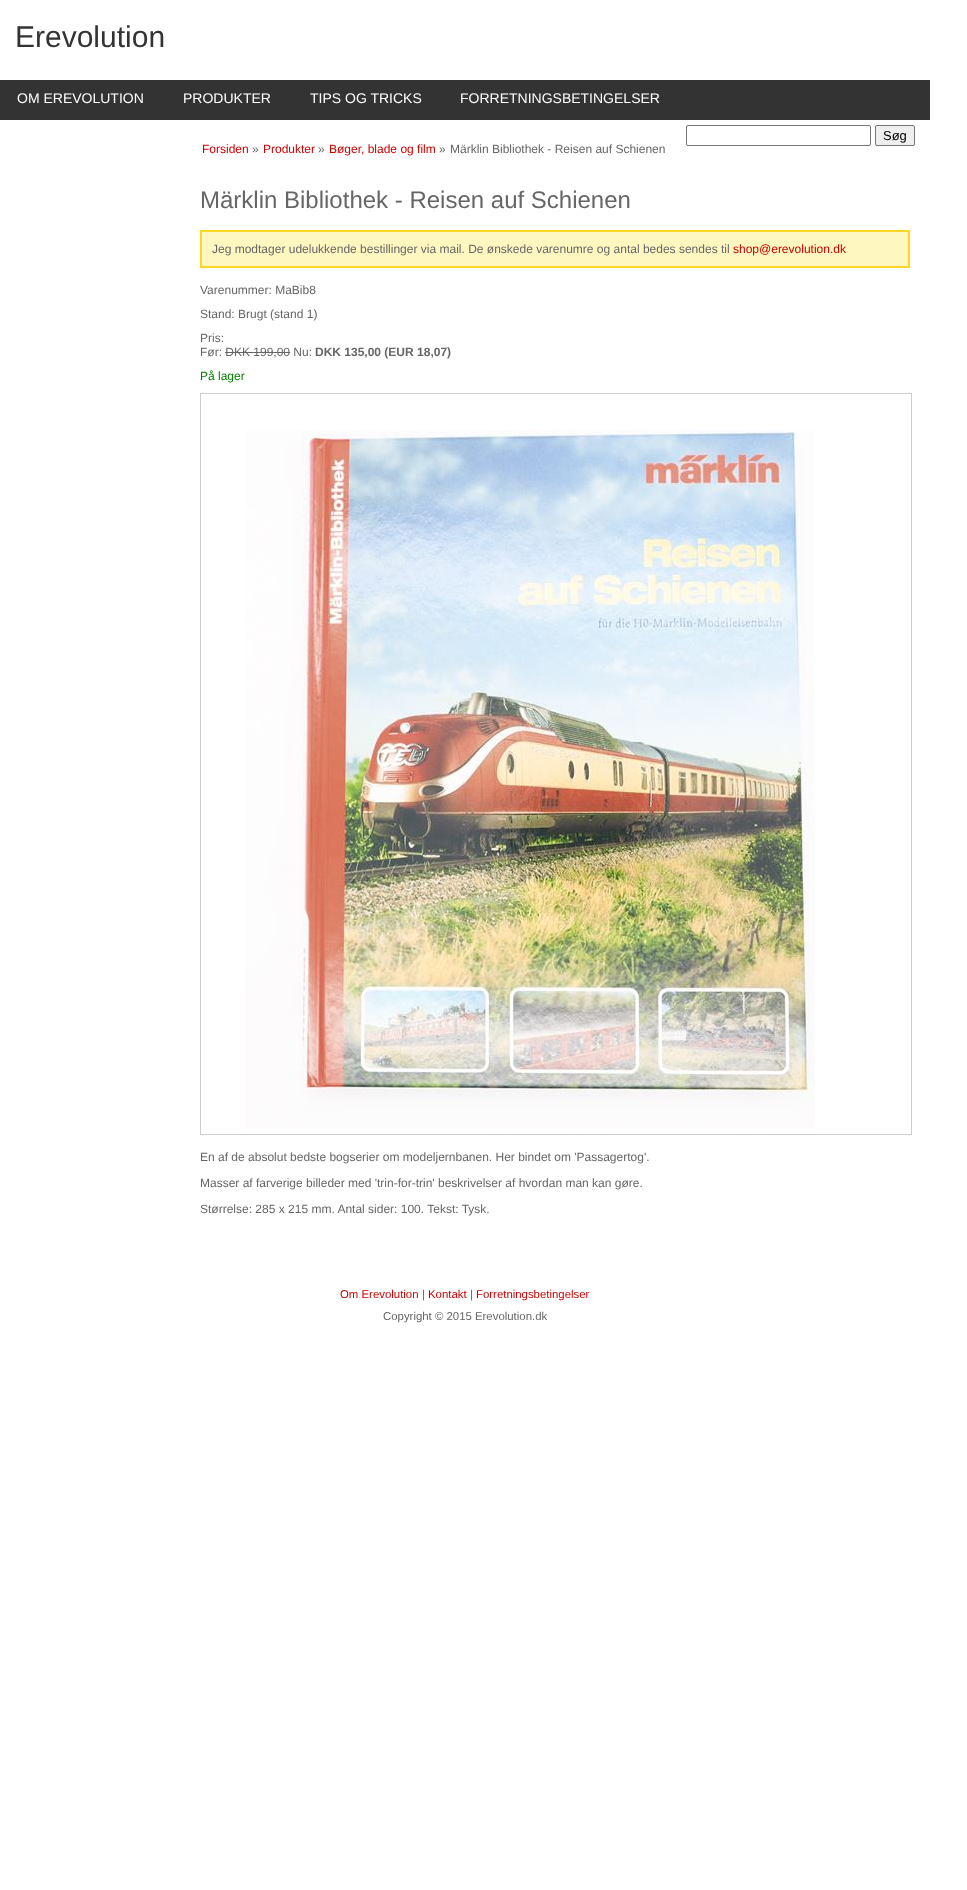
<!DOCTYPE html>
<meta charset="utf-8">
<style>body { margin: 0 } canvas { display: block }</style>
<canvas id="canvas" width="967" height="1890"></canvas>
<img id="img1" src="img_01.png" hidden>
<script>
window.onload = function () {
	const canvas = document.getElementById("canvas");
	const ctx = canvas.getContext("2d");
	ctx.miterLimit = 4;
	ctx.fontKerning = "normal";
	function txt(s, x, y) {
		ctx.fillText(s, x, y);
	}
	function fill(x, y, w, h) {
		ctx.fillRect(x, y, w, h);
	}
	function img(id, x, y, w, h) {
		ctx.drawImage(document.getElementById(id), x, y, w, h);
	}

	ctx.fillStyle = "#FFFFFF";
	fill(0, 0, 967, 1890);
	ctx.fillStyle = "#333333";
	fill(0, 80, 930, 40);
	ctx.beginPath();
	ctx.roundRect(686.5, 125.5, 184, 20, 1.5);
	ctx.strokeStyle = "#767676";
	ctx.stroke();
	ctx.fillStyle = "#EFEFEF";
	ctx.beginPath();
	ctx.roundRect(875.5, 125.5, 39, 20, 1.5);
	ctx.fill();
	ctx.stroke();
	ctx.fillStyle = "#FFF7C0";
	ctx.beginPath();
	ctx.rect(201, 231, 708, 36);
	ctx.fill();
	ctx.strokeStyle = "#FED626";
	ctx.lineWidth = 2;
	ctx.stroke();
	ctx.fillStyle = "#666666";
	fill(225, 352, 65, 1);
	ctx.strokeStyle = "#CCCCCC";
	ctx.lineWidth = 1;
	ctx.strokeRect(200.5, 393.5, 711, 741);
	img("img1", 245, 430, 570, 699);
	ctx.font = "30px Liberation Sans";
	ctx.fillStyle = "#333333";
	txt("Erevolution", 15, 47);
	ctx.font = "14px Liberation Sans";
	ctx.fillStyle = "#FFFFFF";
	txt("OM EREVOLUTION", 17, 103);
	txt("PRODUKTER", 183, 103);
	txt("TIPS OG TRICKS", 310, 103);
	txt("FORRETNINGSBETINGELSER", 460, 103);
	ctx.font = "13px Liberation Sans";
	ctx.fillStyle = "#000000";
	txt("Søg", 883, 140);
	ctx.font = "12px Liberation Sans";
	ctx.fillStyle = "#CC0000";
	txt("Forsiden", 202, 153);
	ctx.fillStyle = "#666666";
	txt("»", 252, 153);
	ctx.fillStyle = "#CC0000";
	txt("Produkter", 263, 153);
	ctx.fillStyle = "#666666";
	txt("»", 318, 153);
	ctx.fillStyle = "#CC0000";
	txt("Bøger, blade og film", 329, 153);
	ctx.fillStyle = "#666666";
	txt("»", 439, 153);
	txt("Märklin Bibliothek - Reisen auf Schienen", 450, 153);
	ctx.font = "24px Liberation Sans";
	txt("Märklin Bibliothek - Reisen auf Schienen", 200, 208);
	ctx.font = "12px Liberation Sans";
	txt("Jeg modtager udelukkende bestillinger via mail. De ønskede varenumre og antal bedes sendes til", 212, 253);
	ctx.fillStyle = "#CC0000";
	txt("shop@erevolution.dk", 733, 253);
	ctx.fillStyle = "#666666";
	txt("Varenummer: MaBib8", 200, 294);
	txt("Stand: Brugt (stand 1)", 200, 318);
	txt("Pris:", 200, 342);
	txt("Før: DKK 199,00 Nu:", 200, 356);
	ctx.font = "bold 12px Liberation Sans";
	txt("DKK 135,00 (EUR 18,07)", 315, 356);
	ctx.font = "12px Liberation Sans";
	ctx.fillStyle = "#008000";
	txt("På lager", 200, 380);
	ctx.fillStyle = "#666666";
	txt("En af de absolut bedste bogserier om modeljernbanen. Her bindet om 'Passagertog'.", 200, 1161);
	txt("Masser af farverige billeder med 'trin-for-trin' beskrivelser af hvordan man kan gøre.", 200, 1187);
	txt("Størrelse: 285 x 215 mm. Antal sider: 100. Tekst: Tysk.", 200, 1213);
	ctx.font = "11.4px Liberation Sans";
	ctx.fillStyle = "#CC0000";
	txt("Om Erevolution", 340, 1298);
	ctx.fillStyle = "#666666";
	txt("|", 422, 1298);
	ctx.fillStyle = "#CC0000";
	txt("Kontakt", 428, 1298);
	ctx.fillStyle = "#666666";
	txt("|", 470, 1298);
	ctx.fillStyle = "#CC0000";
	txt("Forretningsbetingelser", 476, 1298);
	ctx.fillStyle = "#666666";
	txt("Copyright © 2015 Erevolution.dk", 383, 1320);
};
</script>
